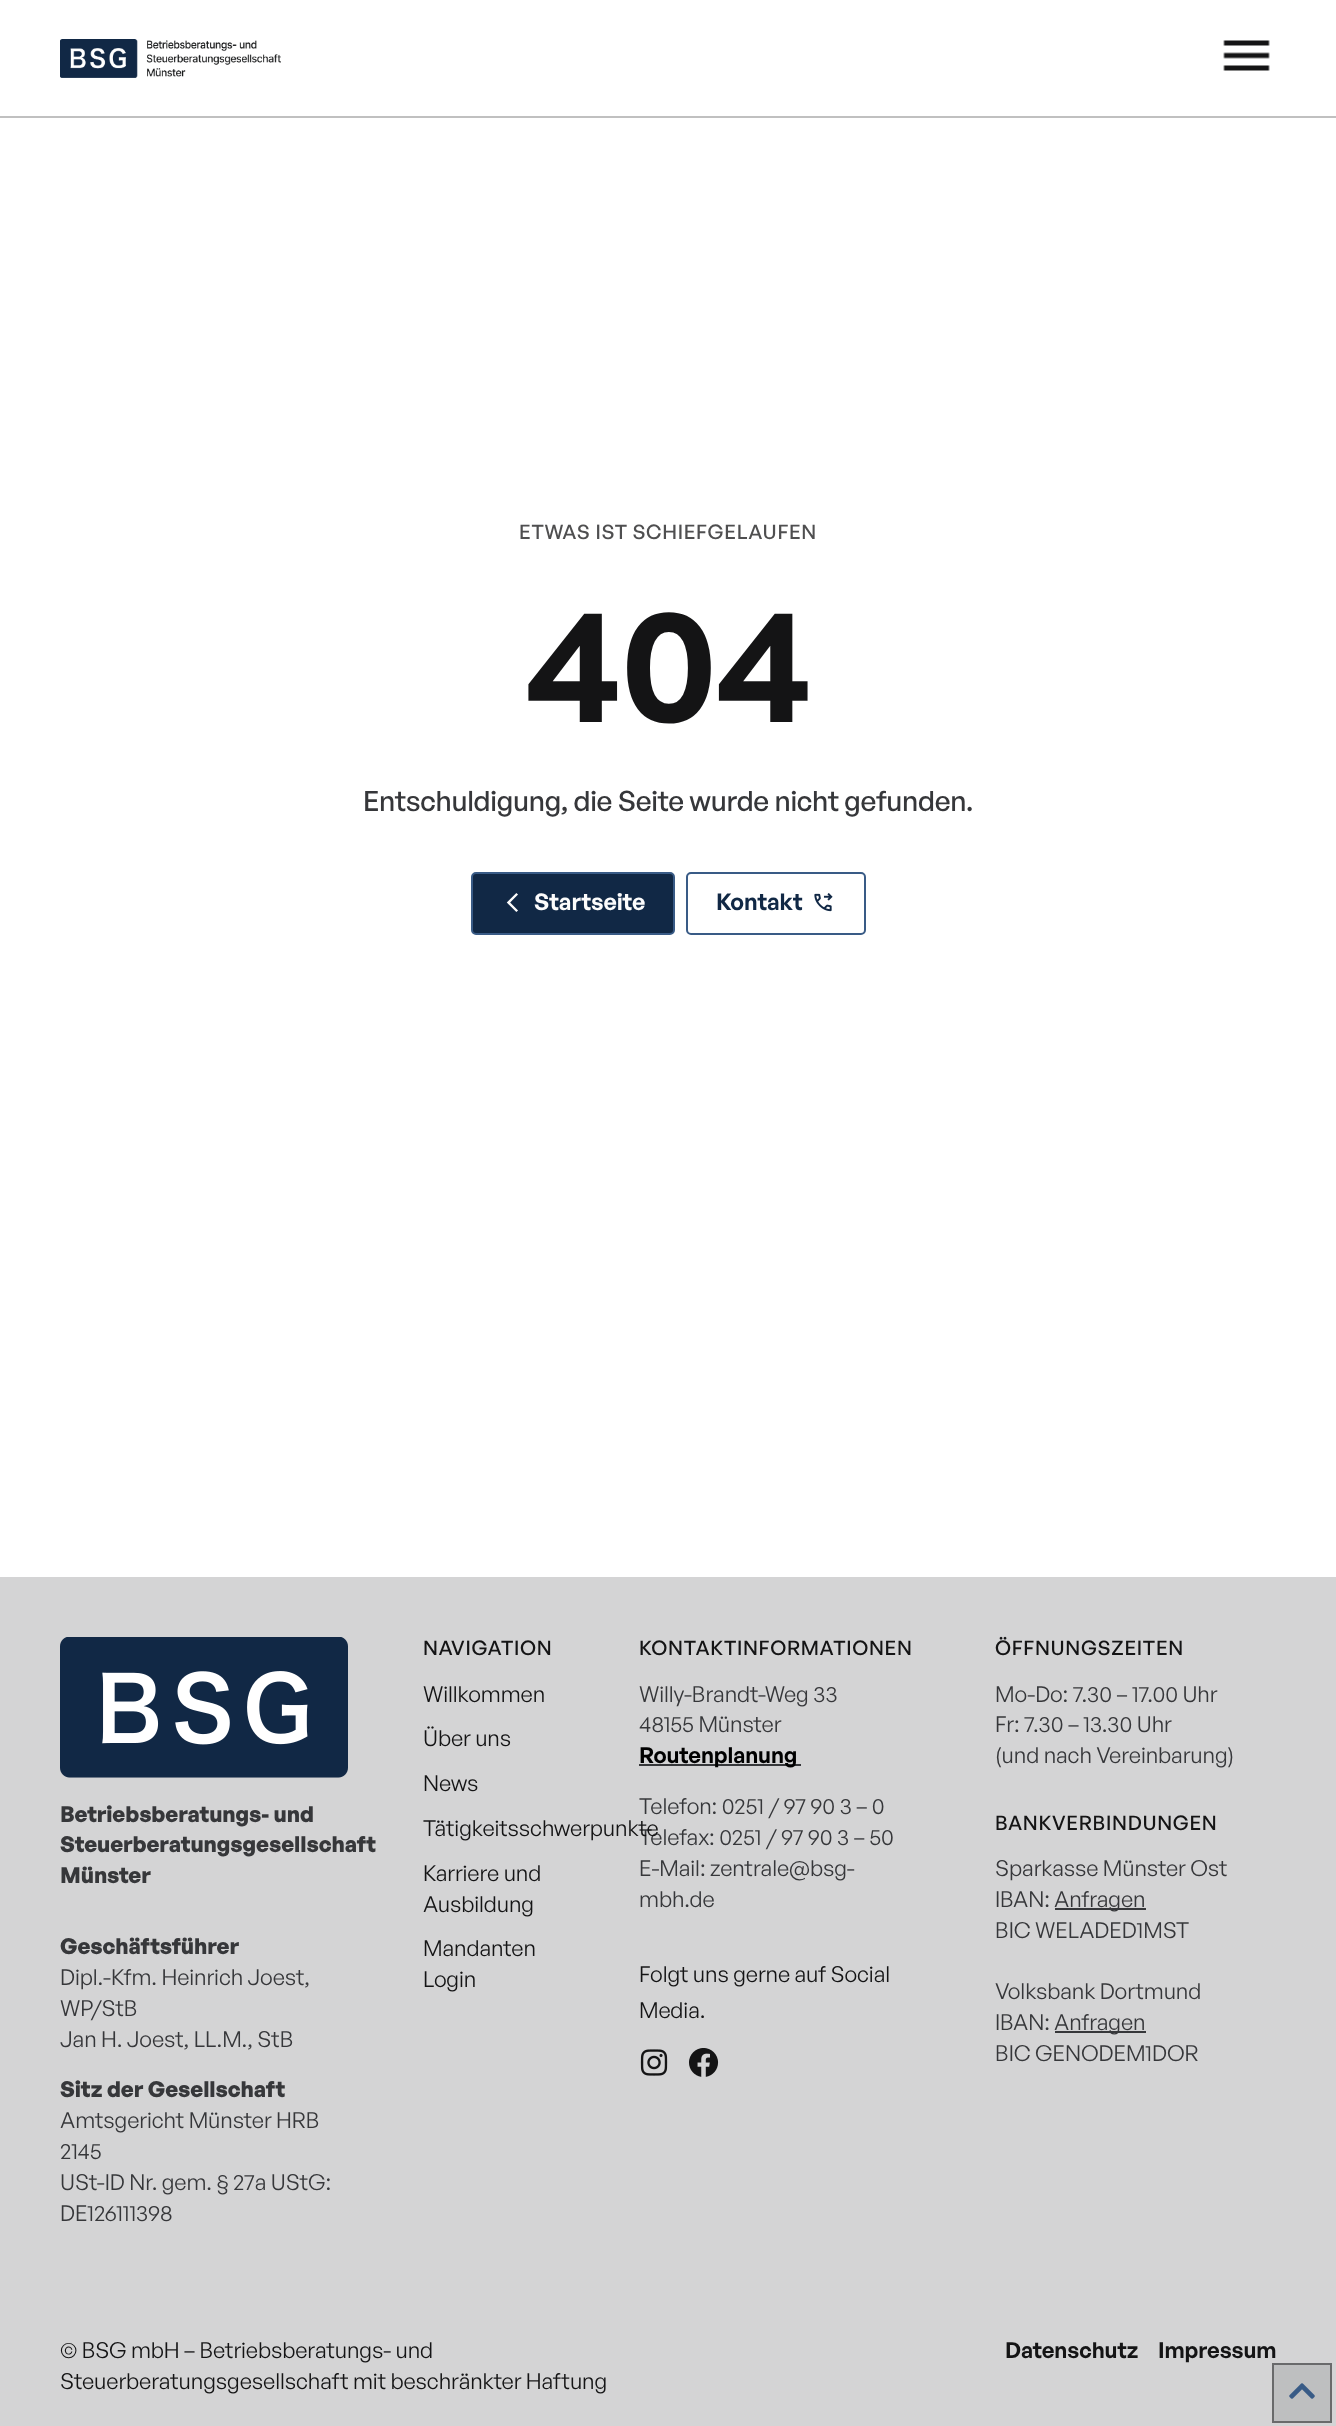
<!DOCTYPE html>
<meta charset="utf-8">
<style>body { margin: 0 } canvas { display: block }</style>
<canvas id="canvas" width="1336" height="2426"></canvas>
<img id="img1" src="img_01.png" hidden>
<img id="img2" src="img_02.png" hidden>
<img id="img3" src="img_03.png" hidden>
<img id="img4" src="img_04.png" hidden>
<img id="img5" src="img_05.png" hidden>
<img id="img6" src="img_06.png" hidden>
<img id="img7" src="img_07.png" hidden>
<img id="img8" src="img_08.png" hidden>
<script>
window.onload = function () {
	const canvas = document.getElementById("canvas");
	const ctx = canvas.getContext("2d");
	ctx.miterLimit = 4;
	ctx.fontKerning = "normal";
	function txt(s, x, y) {
		ctx.fillText(s, x, y);
	}
	function fill(x, y, w, h) {
		ctx.fillRect(x, y, w, h);
	}
	function img(id, x, y, w, h) {
		ctx.drawImage(document.getElementById(id), x, y, w, h);
	}

	ctx.fillStyle = "#FFFFFF";
	fill(0, 0, 1336, 2426);
	ctx.fillStyle = "#C0C0C0";
	fill(0, 116, 1336, 2);
	img("img1", 60, 39, 221, 39);
	img("img2", 1223, 40, 47, 31);
	ctx.fillStyle = "#112845";
	ctx.beginPath();
	ctx.roundRect(472, 873, 202, 61, 4);
	ctx.fill();
	ctx.strokeStyle = "#395B86";
	ctx.lineWidth = 2;
	ctx.stroke();
	img("img3", 506, 893, 12, 19);
	ctx.beginPath();
	ctx.roundRect(687, 873, 178, 61, 4);
	ctx.stroke();
	img("img4", 814, 893, 19, 19);
	ctx.fillStyle = "#D4D4D5";
	fill(0, 1577, 1336, 849);
	img("img5", 60, 1637, 288, 141);
	ctx.fillStyle = "#36373A";
	fill(639, 1764, 162, 2);
	img("img6", 640, 2049, 28, 27);
	img("img7", 689, 2048, 30, 29);
	fill(1055, 1908, 91, 2);
	fill(1055, 2031, 91, 2);
	ctx.fillStyle = "#BEBFC0";
	ctx.beginPath();
	ctx.rect(1273, 2364, 58, 58);
	ctx.fill();
	ctx.strokeStyle = "#696A6B";
	ctx.stroke();
	img("img8", 1289, 2383, 26, 16);
	ctx.letterSpacing = "0.7px";
	ctx.font = "500 20px General Sans";
	ctx.fillStyle = "#4F4F50";
	txt("ETWAS IST SCHIEFGELAUFEN", 519, 539);
	ctx.letterSpacing = "-1.5px";
	ctx.font = "600 160px General Sans";
	ctx.fillStyle = "#141415";
	txt("404", 526, 722);
	ctx.letterSpacing = "-0.3px";
	ctx.font = "500 28px General Sans";
	ctx.fillStyle = "#36373A";
	txt("Entschuldigung, die Seite wurde nicht gefunden.", 363, 811);
	ctx.letterSpacing = "-0.1px";
	ctx.font = "600 23px General Sans";
	ctx.fillStyle = "#FCFCFC";
	txt("Startseite", 534, 910);
	ctx.fillStyle = "#112845";
	txt("Kontakt", 716, 910);
	ctx.font = "bold 22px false";
	ctx.fillStyle = "#36373A";
	txt("Betriebsberatungs- und", 60, 1822);
	txt("Steuerberatungsgesellschaft", 60, 1852);
	txt("Münster", 60, 1883);
	txt("Geschäftsführer", 60, 1954);
	ctx.font = "22px false";
	txt("Dipl.-Kfm. Heinrich Joest,", 60, 1985);
	txt("WP/StB", 60, 2016);
	txt("Jan H. Joest, LL.M., StB", 60, 2047);
	ctx.font = "bold 22px false";
	txt("Sitz der Gesellschaft", 60, 2097);
	ctx.font = "22px false";
	txt("Amtsgericht Münster HRB", 60, 2128);
	txt("2145", 60, 2159);
	txt("USt-ID Nr. gem. § 27a UStG:", 60, 2190);
	txt("DE126111398", 60, 2221);
	ctx.letterSpacing = "0.7px";
	ctx.font = "500 20px General Sans";
	ctx.fillStyle = "#141415";
	txt("NAVIGATION", 423, 1655);
	ctx.letterSpacing = "-0.1px";
	ctx.font = "22px false";
	txt("Willkommen", 423, 1702);
	txt("Über uns", 423, 1746);
	txt("News", 423, 1791);
	txt("Karriere und", 423, 1881);
	txt("Ausbildung", 423, 1912);
	txt("Mandanten", 423, 1956);
	txt("Login", 423, 1987);
	ctx.letterSpacing = "0.7px";
	ctx.font = "500 20px General Sans";
	txt("KONTAKTINFORMATIONEN", 639, 1655);
	ctx.letterSpacing = "-0.1px";
	ctx.font = "22px false";
	ctx.fillStyle = "#36373A";
	txt("Willy-Brandt-Weg 33", 639, 1702);
	txt("48155 Münster", 639, 1732);
	ctx.font = "600 22px General Sans";
	ctx.fillStyle = "#000000";
	txt("Routenplanung", 639, 1763);
	ctx.font = "22px false";
	ctx.fillStyle = "#36373A";
	txt("Telefon: 0251 / 97 90 3 – 0", 639, 1814);
	txt("Telefax: 0251 / 97 90 3 – 50", 639, 1845);
	ctx.fillStyle = "#141415";
	txt("Tätigkeitsschwerpunkte", 423, 1836);
	ctx.fillStyle = "#36373A";
	txt("E-Mail: zentrale@bsg-", 639, 1876);
	txt("mbh.de", 639, 1907);
	ctx.fillStyle = "#141415";
	txt("Folgt uns gerne auf Social", 639, 1982);
	txt("Media.", 639, 2018);
	ctx.letterSpacing = "0.7px";
	ctx.font = "500 20px General Sans";
	txt("ÖFFNUNGSZEITEN", 995, 1655);
	ctx.letterSpacing = "-0.1px";
	ctx.font = "22px false";
	ctx.fillStyle = "#36373A";
	txt("Mo-Do: 7.30 – 17.00 Uhr", 995, 1702);
	txt("Fr: 7.30 – 13.30 Uhr", 995, 1732);
	txt("(und nach Vereinbarung)", 995, 1763);
	ctx.letterSpacing = "0.7px";
	ctx.font = "500 20px General Sans";
	ctx.fillStyle = "#141415";
	txt("BANKVERBINDUNGEN", 995, 1830);
	ctx.letterSpacing = "-0.1px";
	ctx.font = "22px false";
	ctx.fillStyle = "#36373A";
	txt("Sparkasse Münster Ost", 995, 1876);
	txt("IBAN:", 995, 1907);
	txt("Anfragen", 1054, 1907);
	txt("BIC WELADED1MST", 995, 1938);
	txt("Volksbank Dortmund", 995, 1999);
	txt("IBAN:", 995, 2030);
	txt("Anfragen", 1054, 2030);
	txt("BIC GENODEM1DOR", 995, 2061);
	ctx.fillStyle = "#141415";
	txt("© BSG mbH – Betriebsberatungs- und", 60, 2358);
	txt("Steuerberatungsgesellschaft mit beschränkter Haftung", 60, 2389);
	ctx.font = "600 22px General Sans";
	txt("Datenschutz", 1005, 2358);
	txt("Impressum", 1158, 2358);
};
</script>
